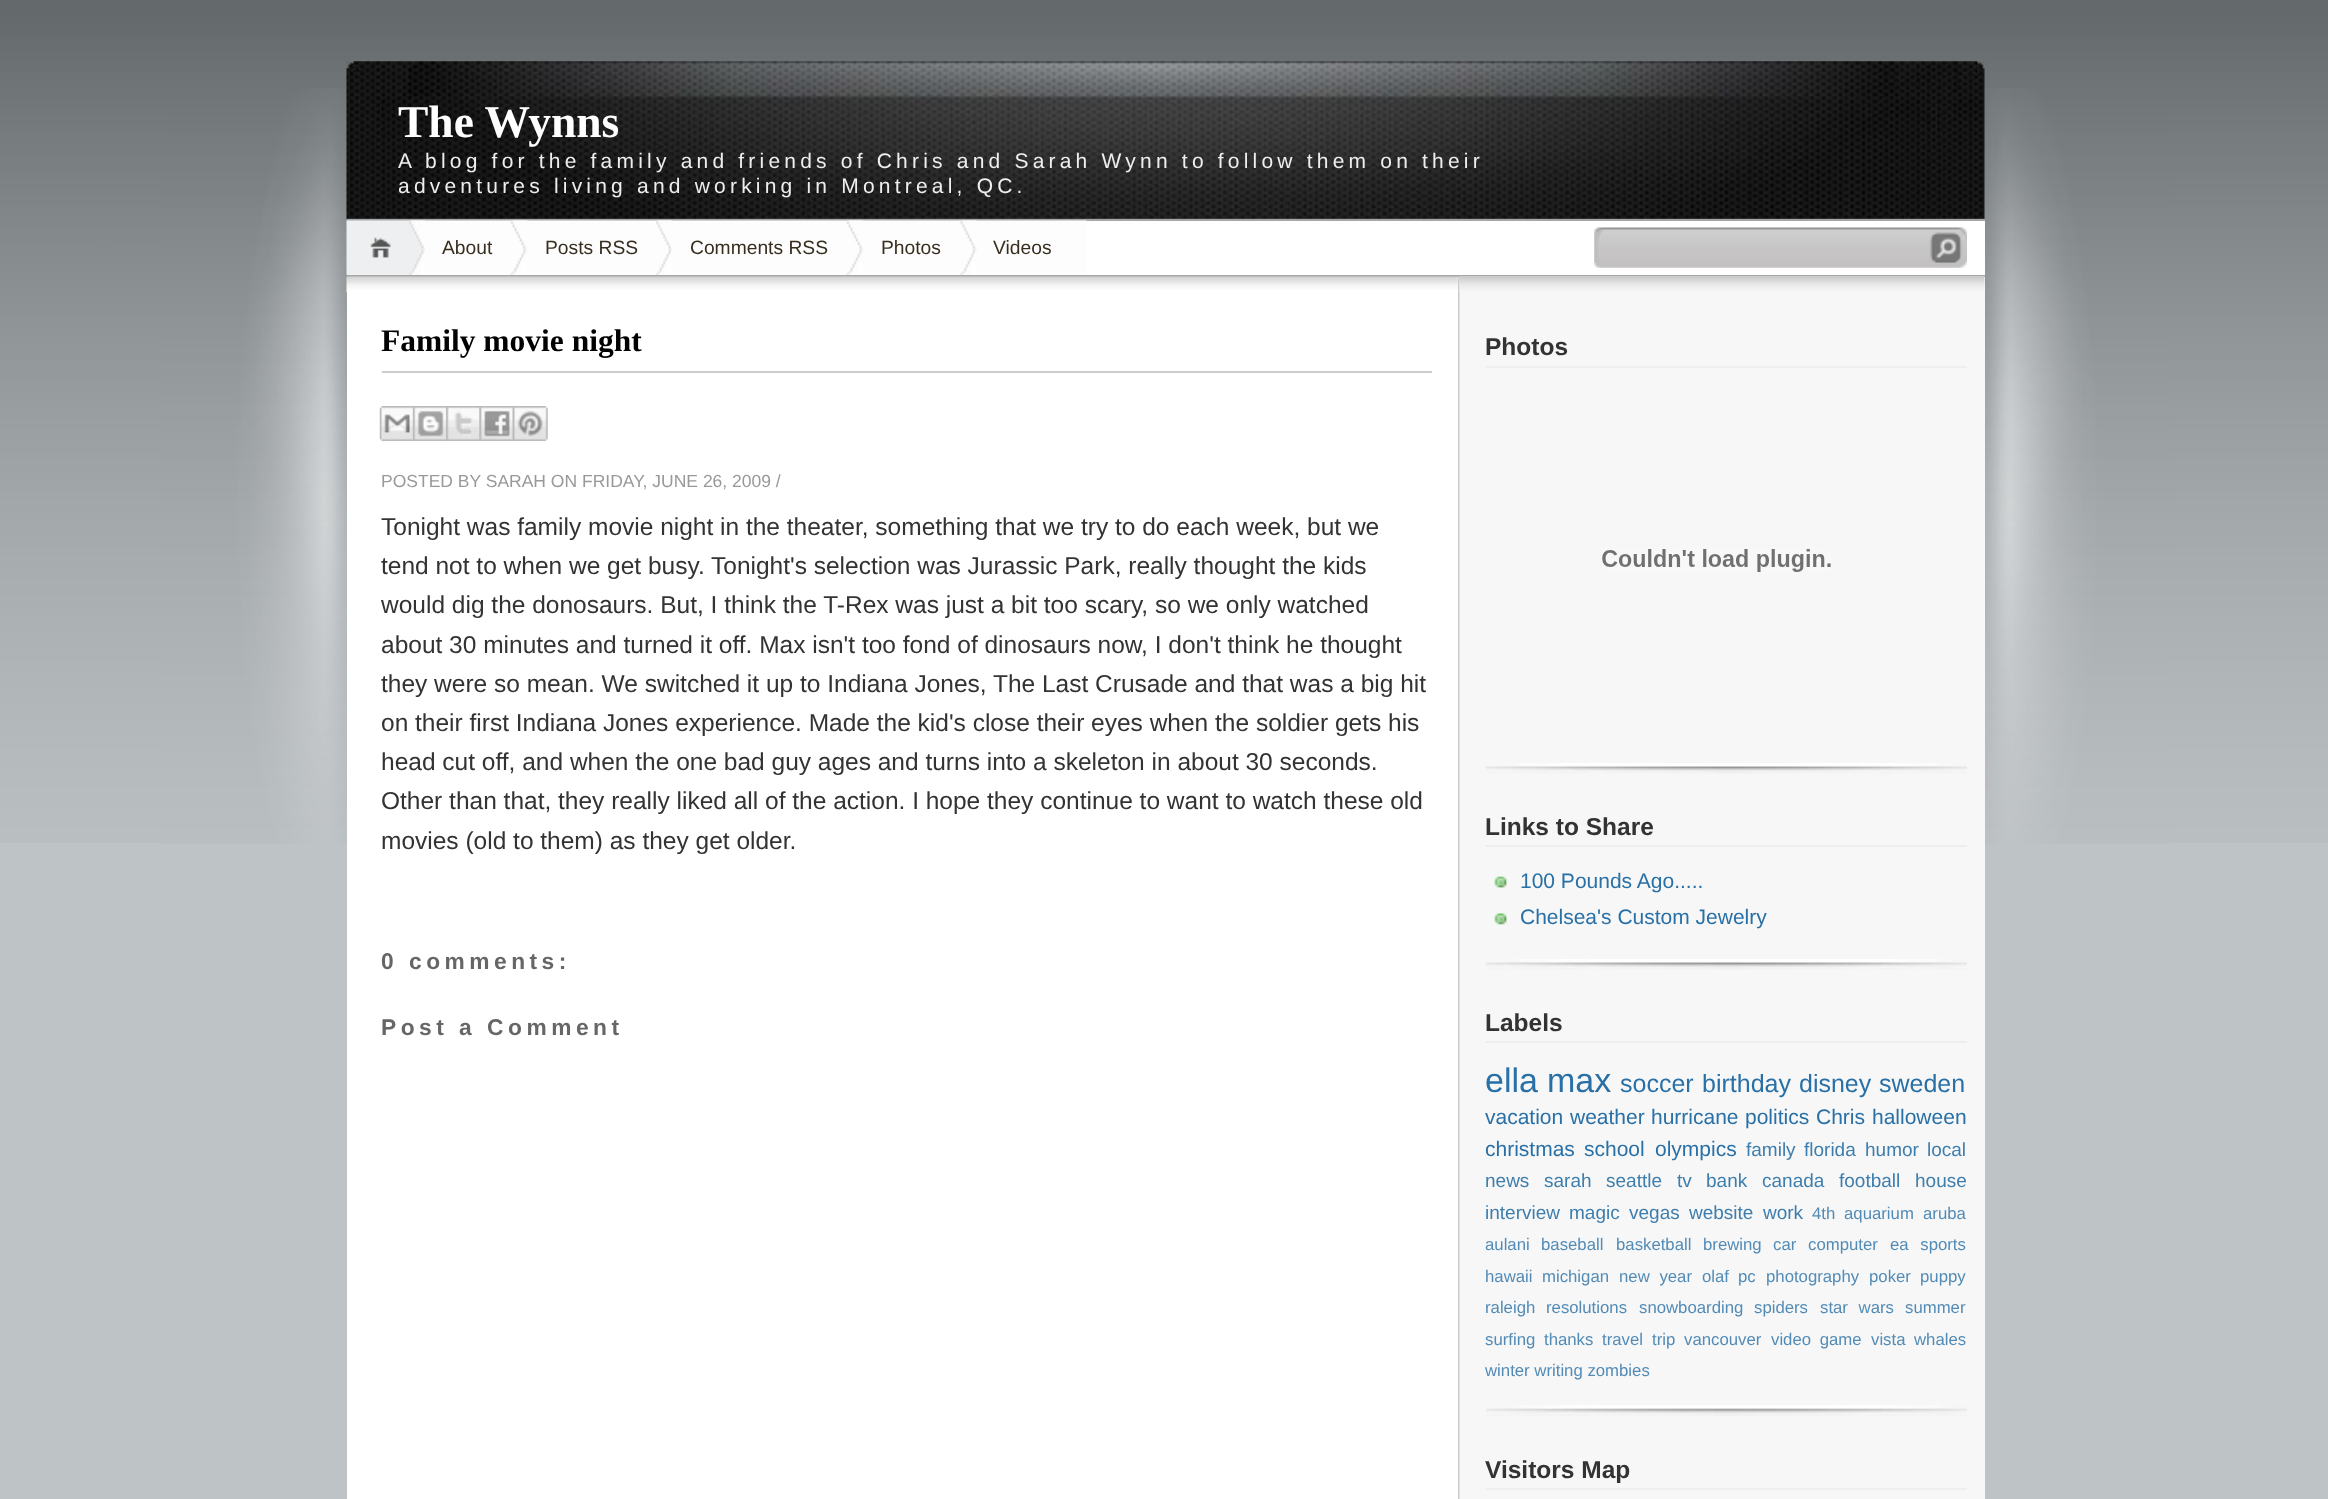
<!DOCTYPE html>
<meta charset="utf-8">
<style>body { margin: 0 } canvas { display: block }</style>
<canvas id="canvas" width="2328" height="1499"></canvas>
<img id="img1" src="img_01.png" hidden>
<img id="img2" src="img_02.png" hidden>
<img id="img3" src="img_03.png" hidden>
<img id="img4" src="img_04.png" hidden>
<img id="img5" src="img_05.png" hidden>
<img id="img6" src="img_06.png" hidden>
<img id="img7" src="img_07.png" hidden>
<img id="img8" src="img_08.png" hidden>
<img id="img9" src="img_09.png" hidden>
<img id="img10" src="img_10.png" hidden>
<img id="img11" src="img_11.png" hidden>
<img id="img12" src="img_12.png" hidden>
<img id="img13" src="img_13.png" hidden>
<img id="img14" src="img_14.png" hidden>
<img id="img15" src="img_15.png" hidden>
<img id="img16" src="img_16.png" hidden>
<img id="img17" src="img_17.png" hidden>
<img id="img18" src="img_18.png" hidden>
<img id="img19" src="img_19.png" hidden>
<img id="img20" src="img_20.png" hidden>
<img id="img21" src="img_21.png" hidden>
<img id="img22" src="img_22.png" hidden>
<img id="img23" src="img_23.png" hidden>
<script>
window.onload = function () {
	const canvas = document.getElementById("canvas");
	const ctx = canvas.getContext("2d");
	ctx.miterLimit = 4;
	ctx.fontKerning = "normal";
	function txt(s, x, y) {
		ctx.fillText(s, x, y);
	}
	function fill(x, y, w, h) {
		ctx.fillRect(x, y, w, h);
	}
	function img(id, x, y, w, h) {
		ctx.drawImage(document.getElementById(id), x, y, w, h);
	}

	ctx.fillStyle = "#BEC3C6";
	fill(0, 0, 2328, 1499);
	img("img1", 0, 0, 2328, 843);
	img("img2", 161, 88, 2009, 756);
	img("img3", 346, 61, 1639, 158);
	ctx.fillStyle = "#A6A6A6";
	fill(347, 219, 1638, 2);
	ctx.fillStyle = "#FFFFFF";
	fill(347, 221, 1638, 54);
	ctx.fillStyle = "#A6A6A6";
	fill(347, 275, 1638, 2);
	img("img4", 346, 220, 80, 55);
	img("img5", 409, 220, 118, 55);
	img("img6", 510, 220, 162, 55);
	img("img7", 656, 220, 207, 55);
	img("img8", 846, 220, 131, 55);
	img("img9", 960, 220, 127, 55);
	img("img10", 1594, 227, 373, 41);
	img("img11", 1457, 276, 528, 1223);
	ctx.fillStyle = "#FFFFFF";
	fill(347, 277, 1111, 1222);
	img("img12", 346, 276, 1112, 17);
	ctx.fillStyle = "#CCCCCC";
	fill(382, 371, 1050, 2);
	img("img13", 379, 406, 34, 35);
	img("img14", 413, 406, 34, 35);
	img("img15", 446, 406, 34, 35);
	img("img16", 479, 406, 34, 35);
	img("img17", 512, 406, 36, 35);
	ctx.fillStyle = "#F7F7F7";
	fill(1984, 277, 1, 1222);
	img("img18", 1459, 276, 526, 16);
	img("img19", 1485, 763, 482, 11);
	ctx.fillStyle = "#EEEEEE";
	fill(1486, 366, 481, 2);
	img("img20", 1602, 549, 229, 23);
	img("img19", 1485, 959, 482, 11);
	fill(1486, 845, 481, 2);
	img("img21", 1494, 876, 13, 12);
	img("img22", 1494, 913, 13, 12);
	img("img23", 1486, 1405, 481, 11);
	fill(1486, 1041, 481, 2);
	fill(1486, 1488, 481, 2);
	ctx.font = "bold 45.5px Liberation Serif";
	ctx.fillStyle = "#FFFFFF";
	txt("The Wynns", 398, 137);
	ctx.letterSpacing = "4.2px";
	ctx.font = "21px Liberation Sans";
	ctx.fillStyle = "#EEEEEE";
	txt("A blog for the family and friends of Chris and Sarah Wynn to follow them on their", 398, 168);
	txt("adventures living and working in Montreal, QC.", 398, 193);
	ctx.letterSpacing = "0px";
	ctx.font = "19.25px Liberation Sans";
	ctx.fillStyle = "#382E1F";
	txt("About", 442, 254);
	txt("Posts RSS", 545, 254);
	txt("Comments RSS", 690, 254);
	txt("Photos", 881, 254);
	txt("Videos", 993, 254);
	ctx.font = "bold 31.5px Liberation Serif";
	ctx.fillStyle = "#000000";
	txt("Family movie night", 381, 351);
	ctx.font = "17.5px Liberation Sans";
	ctx.fillStyle = "#999999";
	txt("POSTED BY SARAH ON FRIDAY, JUNE 26, 2009 /", 381, 487);
	ctx.font = "24.5px Liberation Sans";
	ctx.fillStyle = "#333333";
	txt("Tonight was family movie night in the theater, something that we try to do each week, but we", 381, 535);
	txt("tend not to when we get busy.", 381, 574);
	txt("Tonight's selection was Jurassic Park, really thought the kids", 711, 574);
	txt("would dig the donosaurs. But, I think the T-Rex was just a bit too scary, so we only watched", 381, 613);
	txt("about 30 minutes and turned it off. Max isn't too fond of dinosaurs now, I don't think he thought", 381, 653);
	txt("they were so mean. We switched it up to Indiana Jones, The Last Crusade and that was a big hit", 381, 692);
	txt("on their first Indiana Jones experience. Made the kid's close their eyes when the soldier gets his", 381, 731);
	txt("head cut off, and when the one bad guy ages and turns into a skeleton in about 30 seconds.", 381, 770);
	txt("Other than that, they really liked all of the action. I hope they continue to want to watch these old", 381, 809);
	txt("movies (old to them) as they get older.", 381, 849);
	ctx.letterSpacing = "4.5px";
	ctx.font = "bold 22.75px Liberation Sans";
	ctx.fillStyle = "#666666";
	txt("0 comments:", 381, 969);
	txt("Post a Comment", 381, 1035);
	ctx.letterSpacing = "0px";
	ctx.font = "bold 24.5px Liberation Sans";
	ctx.fillStyle = "#333333";
	txt("Photos", 1485, 355);
	txt("Links to Share", 1485, 835);
	ctx.font = "21px Liberation Sans";
	ctx.fillStyle = "#2970A6";
	txt("100 Pounds Ago.....", 1520, 888);
	txt("Chelsea's Custom Jewelry", 1520, 924);
	ctx.font = "bold 24.5px Liberation Sans";
	ctx.fillStyle = "#333333";
	txt("Labels", 1485, 1031);
	ctx.font = "34px Liberation Sans";
	ctx.fillStyle = "#2970A6";
	txt("ella", 1485, 1092);
	txt("max", 1547, 1092);
	ctx.font = "25px Liberation Sans";
	txt("soccer", 1620, 1092);
	txt("birthday", 1702, 1092);
	txt("disney", 1799, 1092);
	txt("sweden", 1879, 1092);
	ctx.font = "21px Liberation Sans";
	txt("vacation", 1485, 1124);
	txt("weather", 1570, 1124);
	txt("hurricane", 1651, 1124);
	txt("politics", 1745, 1124);
	txt("Chris", 1816, 1124);
	txt("halloween", 1872, 1124);
	txt("christmas", 1485, 1156);
	txt("school", 1584, 1156);
	txt("olympics", 1655, 1156);
	ctx.font = "19px Liberation Sans";
	ctx.fillStyle = "#3E7EAE";
	txt("family", 1746, 1156);
	txt("florida", 1804, 1156);
	txt("humor", 1865, 1156);
	txt("local", 1927, 1156);
	txt("news", 1485, 1187);
	txt("sarah", 1544, 1187);
	txt("seattle", 1606, 1187);
	txt("tv", 1677, 1187);
	txt("bank", 1706, 1187);
	txt("canada", 1762, 1187);
	txt("football", 1839, 1187);
	txt("house", 1915, 1187);
	txt("interview", 1485, 1219);
	txt("magic", 1569, 1219);
	txt("vegas", 1629, 1219);
	txt("website", 1689, 1219);
	txt("work", 1763, 1219);
	ctx.font = "16.75px Liberation Sans";
	ctx.fillStyle = "#528BB6";
	txt("4th", 1812, 1219);
	txt("aquarium", 1844, 1219);
	txt("aruba", 1923, 1219);
	txt("aulani", 1485, 1250);
	txt("baseball", 1541, 1250);
	txt("basketball", 1616, 1250);
	txt("brewing", 1703, 1250);
	txt("car", 1773, 1250);
	txt("computer", 1808, 1250);
	ctx.wordSpacing = "7px";
	txt("ea sports", 1890, 1250);
	ctx.wordSpacing = "0px";
	txt("hawaii", 1485, 1282);
	txt("michigan", 1542, 1282);
	ctx.wordSpacing = "5px";
	txt("new year", 1619, 1282);
	ctx.wordSpacing = "0px";
	txt("olaf", 1702, 1282);
	txt("pc", 1738, 1282);
	txt("photography", 1766, 1282);
	txt("poker", 1869, 1282);
	txt("puppy", 1920, 1282);
	txt("raleigh", 1485, 1313);
	txt("resolutions", 1546, 1313);
	txt("snowboarding", 1639, 1313);
	txt("spiders", 1754, 1313);
	ctx.wordSpacing = "6px";
	txt("star wars", 1820, 1313);
	ctx.wordSpacing = "0px";
	txt("summer", 1905, 1313);
	txt("surfing", 1485, 1345);
	txt("thanks", 1544, 1345);
	txt("travel", 1602, 1345);
	txt("trip", 1652, 1345);
	txt("vancouver", 1684, 1345);
	ctx.wordSpacing = "4px";
	txt("video game", 1771, 1345);
	ctx.wordSpacing = "0px";
	txt("vista", 1871, 1345);
	txt("whales", 1914, 1345);
	txt("winter writing zombies", 1485, 1376);
	ctx.font = "bold 24.5px Liberation Sans";
	ctx.fillStyle = "#333333";
	txt("Visitors Map", 1485, 1478);
};
</script>
